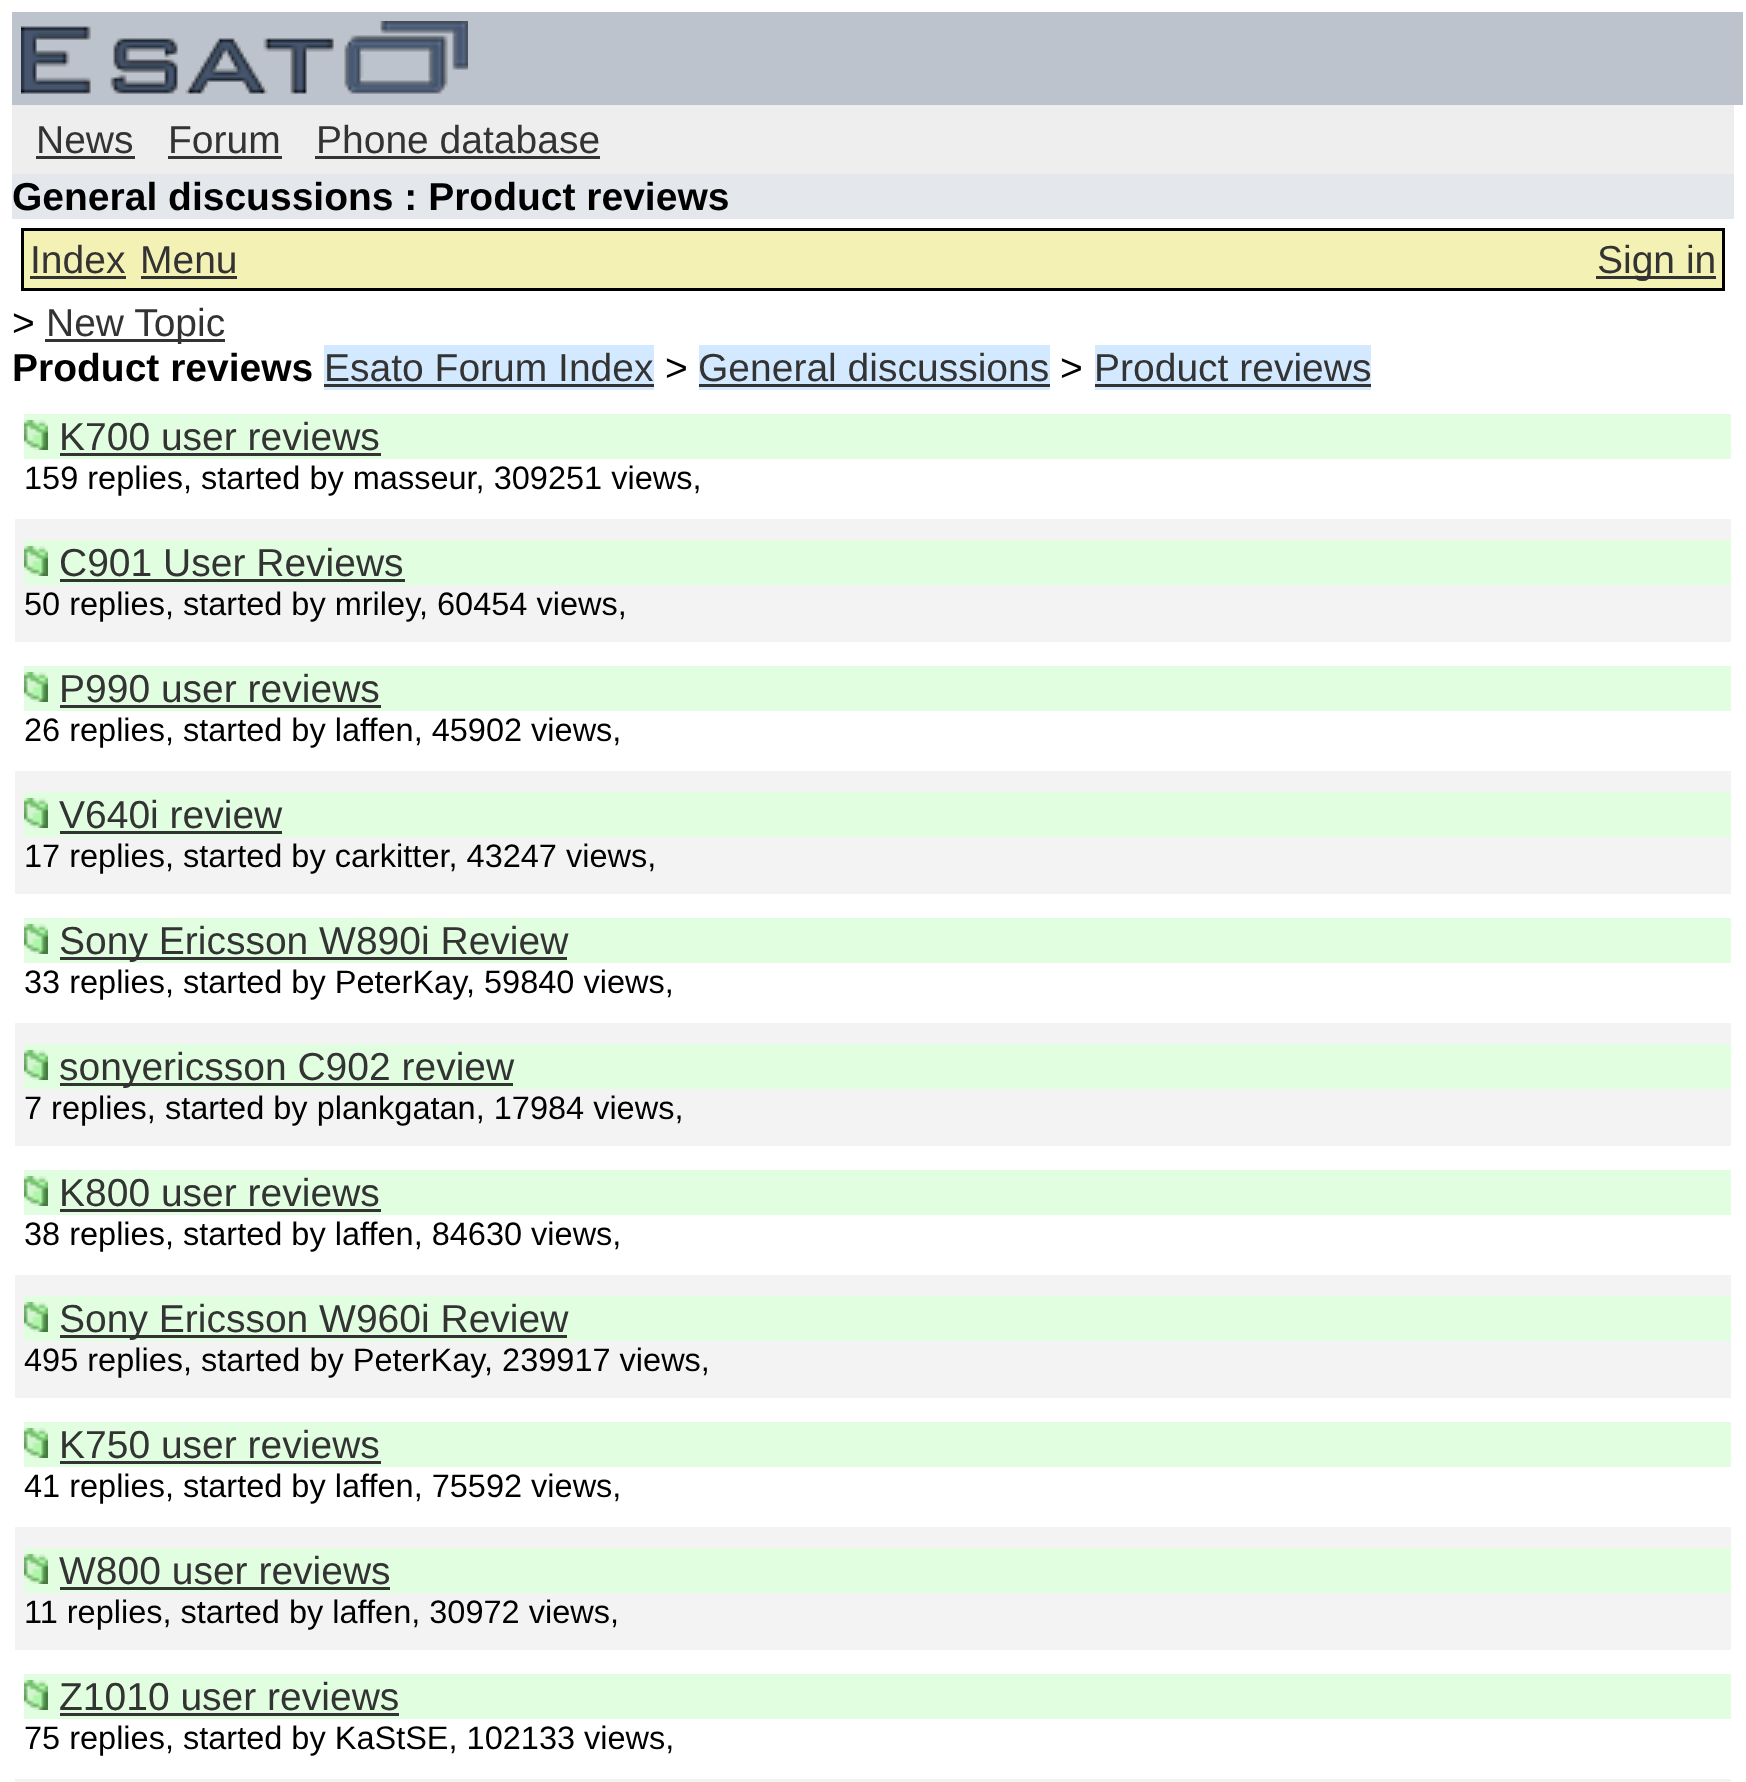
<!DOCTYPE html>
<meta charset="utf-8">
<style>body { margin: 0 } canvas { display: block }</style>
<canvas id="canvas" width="1746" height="1782"></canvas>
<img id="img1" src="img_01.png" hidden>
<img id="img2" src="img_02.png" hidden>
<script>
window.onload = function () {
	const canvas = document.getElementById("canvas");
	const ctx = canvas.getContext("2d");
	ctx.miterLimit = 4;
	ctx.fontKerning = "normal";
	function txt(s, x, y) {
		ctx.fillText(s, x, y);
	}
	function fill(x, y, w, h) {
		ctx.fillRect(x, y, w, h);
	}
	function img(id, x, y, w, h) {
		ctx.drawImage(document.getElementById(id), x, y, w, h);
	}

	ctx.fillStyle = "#FFFFFF";
	fill(0, 0, 1746, 1782);
	ctx.fillStyle = "#BDC3CD";
	fill(12, 12, 1731, 93);
	img("img1", 21, 21, 447, 73);
	ctx.fillStyle = "#EEEEEE";
	fill(12, 105, 1722, 69);
	ctx.fillStyle = "#333333";
	fill(36, 156, 99, 3);
	fill(168, 156, 114, 3);
	fill(315, 156, 285, 3);
	ctx.fillStyle = "#E4E8ED";
	fill(12, 174, 1722, 45);
	ctx.fillStyle = "#F4F1B5";
	ctx.beginPath();
	ctx.rect(22.5, 229.5, 1701, 60);
	ctx.fill();
	ctx.strokeStyle = "#000000";
	ctx.lineWidth = 3;
	ctx.stroke();
	ctx.fillStyle = "#333333";
	fill(30, 276, 96, 3);
	fill(141, 276, 96, 3);
	fill(1596, 276, 120, 3);
	fill(45, 339, 180, 3);
	ctx.fillStyle = "#D2E9FF";
	fill(324, 345, 330, 45);
	ctx.fillStyle = "#333333";
	fill(324, 384, 330, 3);
	ctx.fillStyle = "#D2E9FF";
	fill(699, 345, 351, 45);
	ctx.fillStyle = "#333333";
	fill(699, 384, 351, 3);
	ctx.fillStyle = "#D2E9FF";
	fill(1095, 345, 276, 45);
	ctx.fillStyle = "#333333";
	fill(1095, 384, 276, 3);
	ctx.fillStyle = "#E1FEE0";
	fill(24, 414, 1707, 45);
	img("img2", 24, 420, 24, 30);
	ctx.fillStyle = "#333333";
	fill(60, 453, 321, 3);
	ctx.fillStyle = "#F3F3F3";
	fill(15, 519, 1716, 123);
	ctx.fillStyle = "#E1FEE0";
	fill(24, 540, 1707, 45);
	img("img2", 24, 546, 24, 30);
	ctx.fillStyle = "#333333";
	fill(60, 579, 345, 3);
	ctx.fillStyle = "#E1FEE0";
	fill(24, 666, 1707, 45);
	img("img2", 24, 672, 24, 30);
	ctx.fillStyle = "#333333";
	fill(60, 705, 321, 3);
	ctx.fillStyle = "#F3F3F3";
	fill(15, 771, 1716, 123);
	ctx.fillStyle = "#E1FEE0";
	fill(24, 792, 1707, 45);
	img("img2", 24, 798, 24, 30);
	ctx.fillStyle = "#333333";
	fill(60, 831, 222, 3);
	ctx.fillStyle = "#E1FEE0";
	fill(24, 918, 1707, 45);
	img("img2", 24, 924, 24, 30);
	ctx.fillStyle = "#333333";
	fill(60, 957, 507, 3);
	ctx.fillStyle = "#F3F3F3";
	fill(15, 1023, 1716, 123);
	ctx.fillStyle = "#E1FEE0";
	fill(24, 1044, 1707, 45);
	img("img2", 24, 1050, 24, 30);
	ctx.fillStyle = "#333333";
	fill(60, 1083, 453, 3);
	ctx.fillStyle = "#E1FEE0";
	fill(24, 1170, 1707, 45);
	img("img2", 24, 1176, 24, 30);
	ctx.fillStyle = "#333333";
	fill(60, 1209, 321, 3);
	ctx.fillStyle = "#F3F3F3";
	fill(15, 1275, 1716, 123);
	ctx.fillStyle = "#E1FEE0";
	fill(24, 1296, 1707, 45);
	img("img2", 24, 1302, 24, 30);
	ctx.fillStyle = "#333333";
	fill(60, 1335, 507, 3);
	ctx.fillStyle = "#E1FEE0";
	fill(24, 1422, 1707, 45);
	img("img2", 24, 1428, 24, 30);
	ctx.fillStyle = "#333333";
	fill(60, 1461, 321, 3);
	ctx.fillStyle = "#F3F3F3";
	fill(15, 1527, 1716, 123);
	ctx.fillStyle = "#E1FEE0";
	fill(24, 1548, 1707, 45);
	img("img2", 24, 1554, 24, 30);
	ctx.fillStyle = "#333333";
	fill(60, 1587, 330, 3);
	ctx.fillStyle = "#E1FEE0";
	fill(24, 1674, 1707, 45);
	img("img2", 24, 1680, 24, 30);
	ctx.fillStyle = "#333333";
	fill(60, 1713, 339, 3);
	ctx.fillStyle = "#F3F3F3";
	fill(15, 1779, 1716, 3);
	ctx.font = "39px Liberation Sans";
	ctx.fillStyle = "#333333";
	txt("News", 36, 153);
	txt("Forum", 168, 153);
	txt("Phone database", 316, 153);
	ctx.font = "bold 39px Liberation Sans";
	ctx.fillStyle = "#000000";
	txt("General discussions : Product reviews", 12, 210);
	ctx.font = "39px Liberation Sans";
	ctx.fillStyle = "#333333";
	txt("Index", 30, 273);
	txt("Menu", 140, 273);
	txt("Sign in", 1597, 273);
	ctx.fillStyle = "#000000";
	txt(">", 12, 336);
	ctx.fillStyle = "#333333";
	txt("New Topic", 46, 336);
	ctx.font = "bold 39px Liberation Sans";
	ctx.fillStyle = "#000000";
	txt("Product reviews", 12, 381);
	ctx.font = "39px Liberation Sans";
	ctx.fillStyle = "#333333";
	txt("Esato Forum Index", 324, 381);
	ctx.fillStyle = "#000000";
	txt(">", 665, 381);
	ctx.fillStyle = "#333333";
	txt("General discussions", 698, 381);
	ctx.fillStyle = "#000000";
	txt(">", 1060, 381);
	ctx.fillStyle = "#333333";
	txt("Product reviews", 1094, 381);
	txt("K700 user reviews", 59, 450);
	ctx.font = "32.5px Liberation Sans";
	ctx.fillStyle = "#000000";
	txt("159 replies, started by masseur, 309251 views,", 24, 489);
	ctx.font = "39px Liberation Sans";
	ctx.fillStyle = "#333333";
	txt("C901 User Reviews", 59, 576);
	ctx.font = "32.5px Liberation Sans";
	ctx.fillStyle = "#000000";
	txt("50 replies, started by mriley, 60454 views,", 24, 615);
	ctx.font = "39px Liberation Sans";
	ctx.fillStyle = "#333333";
	txt("P990 user reviews", 59, 702);
	ctx.font = "32.5px Liberation Sans";
	ctx.fillStyle = "#000000";
	txt("26 replies, started by laffen, 45902 views,", 24, 741);
	ctx.font = "39px Liberation Sans";
	ctx.fillStyle = "#333333";
	txt("V640i review", 59, 828);
	ctx.font = "32.5px Liberation Sans";
	ctx.fillStyle = "#000000";
	txt("17 replies, started by carkitter, 43247 views,", 24, 867);
	ctx.font = "39px Liberation Sans";
	ctx.fillStyle = "#333333";
	txt("Sony Ericsson W890i Review", 59, 954);
	ctx.font = "32.5px Liberation Sans";
	ctx.fillStyle = "#000000";
	txt("33 replies, started by PeterKay, 59840 views,", 24, 993);
	ctx.font = "39px Liberation Sans";
	ctx.fillStyle = "#333333";
	txt("sonyericsson C902 review", 59, 1080);
	ctx.font = "32.5px Liberation Sans";
	ctx.fillStyle = "#000000";
	txt("7 replies, started by plankgatan, 17984 views,", 24, 1119);
	ctx.font = "39px Liberation Sans";
	ctx.fillStyle = "#333333";
	txt("K800 user reviews", 59, 1206);
	ctx.font = "32.5px Liberation Sans";
	ctx.fillStyle = "#000000";
	txt("38 replies, started by laffen, 84630 views,", 24, 1245);
	ctx.font = "39px Liberation Sans";
	ctx.fillStyle = "#333333";
	txt("Sony Ericsson W960i Review", 59, 1332);
	ctx.font = "32.5px Liberation Sans";
	ctx.fillStyle = "#000000";
	txt("495 replies, started by PeterKay, 239917 views,", 24, 1371);
	ctx.font = "39px Liberation Sans";
	ctx.fillStyle = "#333333";
	txt("K750 user reviews", 59, 1458);
	ctx.font = "32.5px Liberation Sans";
	ctx.fillStyle = "#000000";
	txt("41 replies, started by laffen, 75592 views,", 24, 1497);
	ctx.font = "39px Liberation Sans";
	ctx.fillStyle = "#333333";
	txt("W800 user reviews", 59, 1584);
	ctx.font = "32.5px Liberation Sans";
	ctx.fillStyle = "#000000";
	txt("11 replies, started by laffen, 30972 views,", 24, 1623);
	ctx.font = "39px Liberation Sans";
	ctx.fillStyle = "#333333";
	txt("Z1010 user reviews", 59, 1710);
	ctx.font = "32.5px Liberation Sans";
	ctx.fillStyle = "#000000";
	txt("75 replies, started by KaStSE, 102133 views,", 24, 1749);
};
</script>
